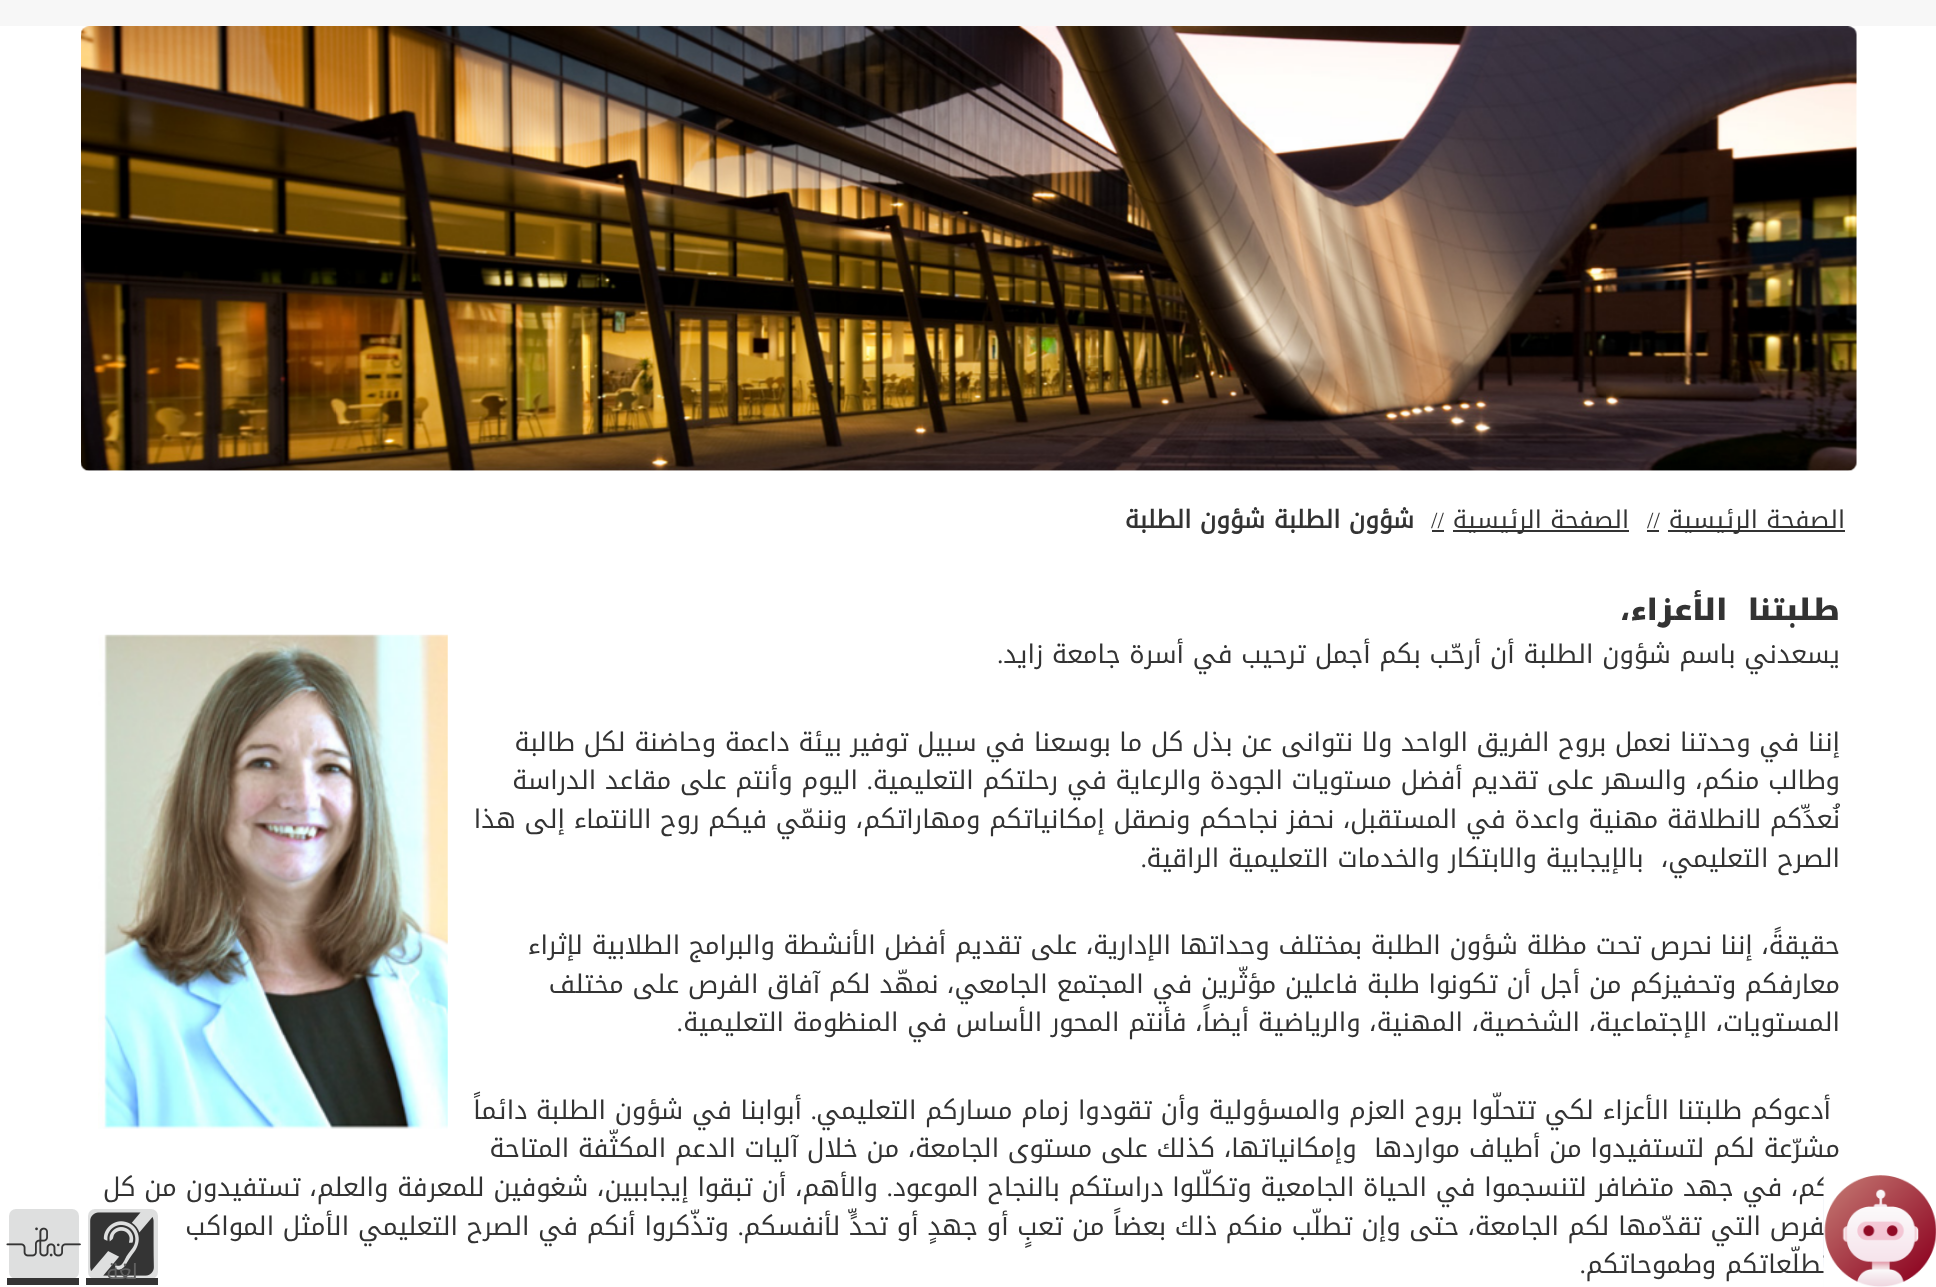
<!DOCTYPE html>
<meta charset="utf-8">
<style>body { margin: 0 } canvas { display: block }</style>
<canvas id="canvas" width="1936" height="1287"></canvas>
<img id="img1" src="img_01.png" hidden>
<img id="img2" src="img_04.png" hidden>
<img id="img3" src="img_05.png" hidden>
<img id="img4" src="img_06.png" hidden>
<img id="img5" src="img_02.png" hidden>
<img id="img6" src="img_03.png" hidden>
<script>
window.onload = function () {
	const canvas = document.getElementById("canvas");
	const ctx = canvas.getContext("2d");
	ctx.miterLimit = 4;
	ctx.fontKerning = "normal";
	function txt(s, x, y) {
		ctx.fillText(s, x, y);
	}
	function fill(x, y, w, h) {
		ctx.fillRect(x, y, w, h);
	}
	function round(x, y, w, h, r) {
		ctx.beginPath();
		ctx.roundRect(x, y, w, h, r);
		ctx.fill();
	}
	function img(id, x, y, w, h) {
		ctx.drawImage(document.getElementById(id), x, y, w, h);
	}

	ctx.fillStyle = "#FFFFFF";
	fill(0, 0, 1936, 1287);
	ctx.fillStyle = "#F7F7F7";
	fill(0, 0, 1936, 26);
	img("img1", 81, 26, 1776, 445);
	ctx.fillStyle = "#333333";
	fill(1668, 530, 177, 2);
	fill(1647, 530, 12, 2);
	fill(1453, 530, 176, 2);
	fill(1432, 530, 12, 2);
	img("img2", 98, 634, 350, 495);
	ctx.fillStyle = "#DEDFDF";
	round(88, 1209, 70, 70, 7);
	img("img3", 90, 1212, 64, 64);
	ctx.fillStyle = "#343434";
	fill(86, 1278, 72, 7);
	ctx.fillStyle = "#DEDFDF";
	round(9, 1209, 70, 70, 7);
	img("img4", 6, 1227, 75, 30);
	ctx.fillStyle = "#343434";
	fill(7, 1278, 72, 7);
	ctx.direction = "rtl";
	ctx.font = "24.5px Noto Kufi Arabic";
	ctx.fillStyle = "#333333";
	txt("الصفحة الرئيسية", 1845, 528);
	ctx.direction = "ltr";
	ctx.font = "23px Liberation Serif";
	txt("//", 1647, 528);
	ctx.direction = "rtl";
	ctx.font = "24.5px Noto Kufi Arabic";
	txt("الصفحة الرئيسية", 1629, 528);
	ctx.direction = "ltr";
	ctx.font = "23px Liberation Serif";
	txt("//", 1431, 528);
	ctx.direction = "rtl";
	ctx.font = "bold 24.5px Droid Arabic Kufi";
	txt("شؤون الطلبة", 1414, 528);
	txt("شؤون الطلبة", 1265, 528);
	ctx.font = "900 29.5px Noto Kufi Arabic";
	txt("طلبتنا  الأعزاء،", 1840, 620);
	ctx.font = "25.72px Noto Kufi Arabic";
	txt("يسعدني باسم شؤون الطلبة أن أرحّب بكم أجمل ترحيب في أسرة جامعة زايد", 1840, 663);
	ctx.direction = "ltr";
	ctx.font = "25.72px Liberation Serif";
	txt(".", 997, 663);
	ctx.direction = "rtl";
	ctx.font = "25.72px Noto Kufi Arabic";
	txt("إننا في وحدتنا نعمل بروح الفريق الواحد ولا نتوانى عن بذل كل ما بوسعنا في سبيل توفير بيئة داعمة وحاضنة لكل طالبة", 1840, 751);
	txt("وطالب منكم، والسهر على تقديم أفضل مستويات الجودة والرعاية في رحلتكم التعليمية", 1840, 789);
	ctx.font = "25.72px Liberation Serif";
	txt(".", 873, 789);
	ctx.font = "25.72px Noto Kufi Arabic";
	txt("اليوم وأنتم على مقاعد الدراسة", 858, 789);
	txt("نُعدِّكم لانطلاقة مهنية واعدة في المستقبل، نحفز نجاحكم ونصقل إمكانياتكم ومهاراتكم، وننمّي فيكم روح الانتماء إلى هذا", 1840, 828);
	txt("الصرح التعليمي،  بالإيجابية والابتكار والخدمات التعليمية الراقية", 1840, 867);
	ctx.font = "25.72px Liberation Serif";
	txt(".", 1147, 867);
	ctx.font = "25.72px Noto Kufi Arabic";
	txt("حقيقةً، إننا نحرص تحت مظلة شؤون الطلبة بمختلف وحداتها الإدارية، على تقديم أفضل الأنشطة والبرامج الطلابية لإثراء", 1840, 954);
	txt("معارفكم وتحفيزكم من أجل أن تكونوا طلبة فاعلين مؤثّرين في المجتمع الجامعي، نمهّد لكم آفاق الفرص على مختلف", 1840, 993);
	txt("المستويات، الإجتماعية، الشخصية، المهنية، والرياضية أيضاً، فأنتم المحور الأساس في المنظومة التعليمية", 1840, 1031);
	ctx.font = "25.72px Liberation Serif";
	txt(".", 683, 1031);
	ctx.font = "25.72px Noto Kufi Arabic";
	txt("أدعوكم طلبتنا الأعزاء لكي تتحلّوا بروح العزم والمسؤولية وأن تقودوا زمام مساركم التعليمي", 1831, 1119);
	ctx.font = "25.72px Liberation Serif";
	txt(".", 817, 1119);
	ctx.font = "25.72px Noto Kufi Arabic";
	txt("أبوابنا في شؤون الطلبة دائماً", 802, 1119);
	txt("مشرّعة لكم لتستفيدوا من أطياف مواردها  وإمكانياتها، كذلك على مستوى الجامعة، من خلال آليات الدعم المكثّفة المتاحة", 1840, 1157);
	txt("لكم، في جهد متضافر لتنسجموا في الحياة الجامعية وتكلّلوا دراستكم بالنجاح الموعود", 1840, 1196);
	ctx.font = "25.72px Liberation Serif";
	txt(".", 893, 1196);
	ctx.font = "25.72px Noto Kufi Arabic";
	txt("والأهم، أن تبقوا إيجاببين، شغوفين للمعرفة والعلم، تستفيدون من كل", 878, 1196);
	txt("الفرص التي تقدّمها لكم الجامعة، حتى وإن تطلّب منكم ذلك بعضاً من تعبٍ أو جهدٍ أو تحدٍّ لأنفسكم", 1840, 1235);
	ctx.font = "25.72px Liberation Serif";
	txt(".", 744, 1235);
	ctx.font = "25.72px Noto Kufi Arabic";
	txt("وتذّكروا أنكم في الصرح التعليمي الأمثل المواكب", 729, 1235);
	txt("لتطلّعاتكم وطموحاتكم", 1840, 1273);
	ctx.fillStyle = "#FFFFFF";
	fill(1824, 1175, 14, 98);
	img("img5", 1824, 1175, 112, 112);
	img("img6", 1823, 1174, 1, 113);
	ctx.font = "25.72px Liberation Serif";
	ctx.fillStyle = "#333333";
	txt(".", 1586, 1273);
	ctx.font = "21px Noto Kufi Arabic";
	ctx.fillStyle = "#616161";
	txt("لغة", 138, 1279);
};
</script>
